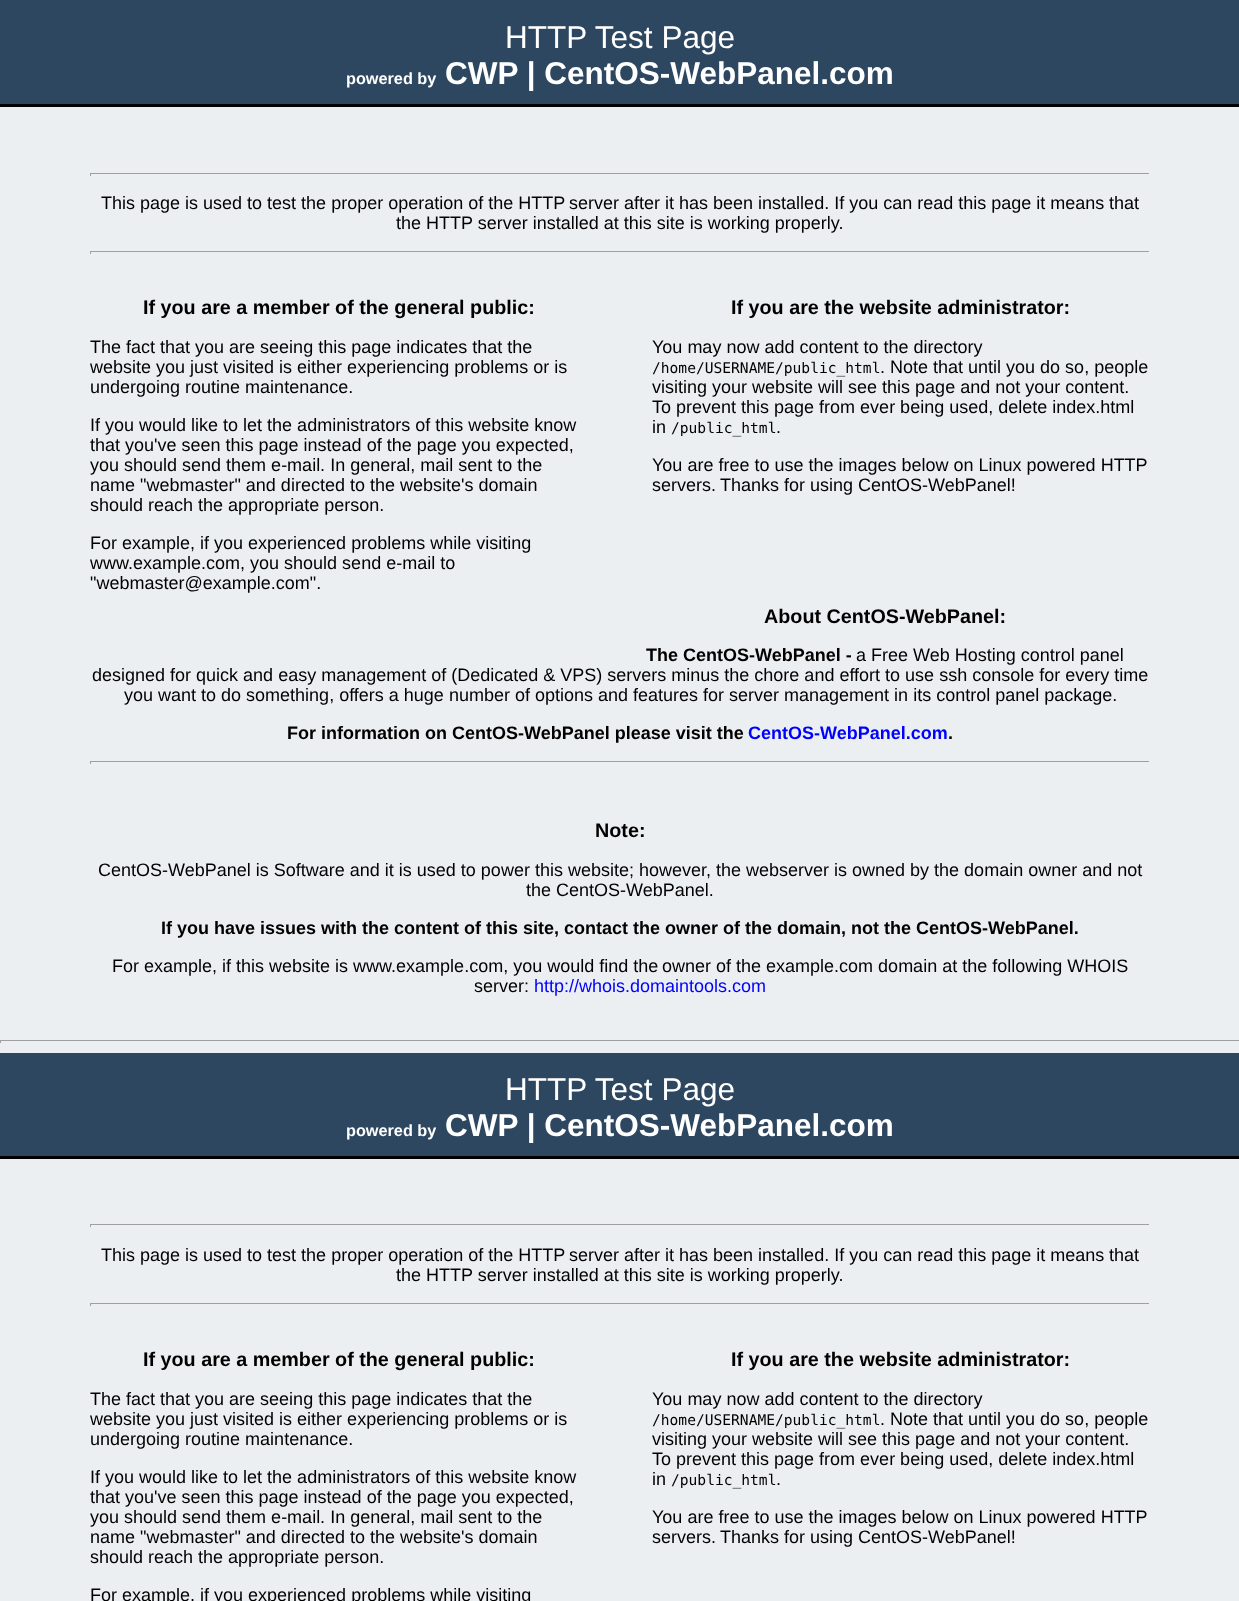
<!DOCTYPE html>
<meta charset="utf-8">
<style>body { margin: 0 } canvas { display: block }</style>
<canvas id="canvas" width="1239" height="1601"></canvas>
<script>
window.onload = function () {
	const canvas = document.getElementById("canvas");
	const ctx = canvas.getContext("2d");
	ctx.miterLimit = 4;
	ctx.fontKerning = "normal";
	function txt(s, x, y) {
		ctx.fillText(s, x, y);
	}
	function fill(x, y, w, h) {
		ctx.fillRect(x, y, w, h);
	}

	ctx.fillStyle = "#ECEFF1";
	fill(0, 0, 1239, 1601);
	ctx.fillStyle = "#2D4760";
	fill(0, 0, 1239, 104);
	ctx.fillStyle = "#000000";
	fill(0, 104, 1239, 3);
	ctx.fillStyle = "#9F9F9F";
	fill(90, 173, 1060, 1);
	ctx.fillStyle = "#EEEEEE";
	fill(1149, 173, 1, 3);
	fill(90, 174, 1060, 1);
	ctx.fillStyle = "#9F9F9F";
	fill(90, 173, 1, 3);
	fill(90, 251, 1060, 1);
	ctx.fillStyle = "#EEEEEE";
	fill(1149, 251, 1, 3);
	fill(90, 253, 1060, 1);
	ctx.fillStyle = "#9F9F9F";
	fill(90, 251, 1, 3);
	fill(90, 761, 1060, 1);
	ctx.fillStyle = "#EEEEEE";
	fill(1149, 761, 1, 3);
	fill(90, 763, 1060, 1);
	ctx.fillStyle = "#9F9F9F";
	fill(90, 761, 1, 3);
	fill(0, 1040, 1239, 1);
	ctx.fillStyle = "#EEEEEE";
	fill(0, 1041, 1239, 1);
	ctx.fillStyle = "#9F9F9F";
	fill(0, 1040, 1, 3);
	ctx.fillStyle = "#2D4760";
	fill(0, 1053, 1239, 103);
	ctx.fillStyle = "#000000";
	fill(0, 1156, 1239, 3);
	ctx.fillStyle = "#9F9F9F";
	fill(90, 1224, 1060, 1);
	ctx.fillStyle = "#EEEEEE";
	fill(1149, 1224, 1, 3);
	fill(90, 1225, 1060, 1);
	ctx.fillStyle = "#9F9F9F";
	fill(90, 1224, 1, 3);
	fill(90, 1303, 1060, 1);
	ctx.fillStyle = "#EEEEEE";
	fill(1149, 1303, 1, 3);
	fill(90, 1304, 1060, 1);
	ctx.fillStyle = "#9F9F9F";
	fill(90, 1303, 1, 3);
	ctx.font = "31.5px Liberation Sans";
	ctx.fillStyle = "#FFFFFF";
	txt("HTTP Test Page", 505, 48);
	ctx.font = "bold 16.25px Liberation Sans";
	txt("powered by", 346, 84);
	ctx.font = "bold 31.5px Liberation Sans";
	txt("CWP | CentOS-WebPanel.com", 445, 84);
	ctx.font = "18px Liberation Sans";
	ctx.fillStyle = "#000000";
	txt("This page is used to test the proper operation of the HTTP", 101, 209);
	txt("server after it has been installed. If you can read this page it means", 569, 209);
	txt("that", 1109, 209);
	txt("the HTTP server installed at this site is working properly.", 396, 229);
	ctx.font = "bold 19.75px Liberation Sans";
	txt("If you are a member of the general public:", 143, 314);
	ctx.font = "18px Liberation Sans";
	txt("The fact that you are seeing this page indicates that the", 90, 353);
	txt("website you just visited is either experiencing problems or is", 90, 373);
	txt("undergoing routine maintenance.", 90, 393);
	txt("If you would like to let the administrators of this website know", 90, 431);
	txt("that you've seen this page instead of the page you expected,", 90, 451);
	txt("you should send them e-mail. In general, mail sent to the", 90, 471);
	txt("name \"webmaster\" and directed to the website's domain", 90, 491);
	txt("should reach the appropriate person.", 90, 511);
	txt("For example, if you experienced problems while visiting", 90, 549);
	txt("www.example.com, you should send e-mail to", 90, 569);
	txt("\"webmaster@example.com\".", 90, 589);
	ctx.font = "bold 19.75px Liberation Sans";
	txt("If you are the website administrator:", 731, 314);
	ctx.font = "18px Liberation Sans";
	txt("You may now add content to the directory", 652, 353);
	ctx.font = "14.6px DejaVu Sans Mono";
	txt("/home/USERNAME/public_html", 652, 373);
	ctx.font = "18px Liberation Sans";
	txt(". Note that until you do so, people", 880, 373);
	txt("visiting your website will see this page and not your content.", 652, 393);
	txt("To prevent this page from ever being used, delete index.html", 652, 413);
	txt("in", 652, 433);
	ctx.font = "14.6px DejaVu Sans Mono";
	txt("/public_html", 671, 433);
	ctx.font = "18px Liberation Sans";
	txt(".", 776, 433);
	txt("You are free to use the images below on Linux powered HTTP", 652, 471);
	txt("servers.", 652, 491);
	txt("Thanks for using CentOS-WebPanel!", 720, 491);
	ctx.font = "bold 19.75px Liberation Sans";
	txt("About CentOS-WebPanel:", 764, 623);
	ctx.font = "bold 18px Liberation Sans";
	txt("The CentOS-WebPanel -", 646, 661);
	ctx.font = "18px Liberation Sans";
	txt("a Free Web Hosting control panel", 856, 661);
	txt("designed for quick and easy management of (Dedicated & VPS) servers minus the chore and effort to use ssh console for every time", 92, 681);
	txt("you want to do something, offers a huge number of options and features for server management in its control panel package.", 124, 701);
	ctx.font = "bold 18px Liberation Sans";
	txt("For information on CentOS-WebPanel please visit the", 287, 739);
	ctx.fillStyle = "#0000FF";
	txt("CentOS-WebPanel.com", 748, 739);
	ctx.fillStyle = "#000000";
	txt(".", 948, 739);
	ctx.font = "bold 19.75px Liberation Sans";
	txt("Note:", 595, 837);
	ctx.font = "18px Liberation Sans";
	txt("CentOS-WebPanel is Software and it is used to power this website; however, the webserver is owned by the domain owner and not", 98, 876);
	txt("the CentOS-WebPanel.", 526, 896);
	ctx.font = "bold 18px Liberation Sans";
	txt("If you have issues with the content of this site, contact the owner of the domain, not the CentOS-WebPanel.", 161, 934);
	ctx.font = "18px Liberation Sans";
	txt("For example, if this website is www.example.com, you would find the", 112, 972);
	txt("owner of the example.com domain at the following WHOIS", 662, 972);
	txt("server:", 474, 992);
	ctx.fillStyle = "#0000FF";
	txt("http://whois.domaintools.com", 534, 992);
	ctx.font = "31.5px Liberation Sans";
	ctx.fillStyle = "#FFFFFF";
	txt("HTTP Test Page", 505, 1100);
	ctx.font = "bold 16.25px Liberation Sans";
	txt("powered by", 346, 1136);
	ctx.font = "bold 31.5px Liberation Sans";
	txt("CWP | CentOS-WebPanel.com", 445, 1136);
	ctx.font = "18px Liberation Sans";
	ctx.fillStyle = "#000000";
	txt("This page is used to test the proper operation of the HTTP", 101, 1261);
	txt("server after it has been installed. If you can read this page it means", 569, 1261);
	txt("that", 1109, 1261);
	txt("the HTTP server installed at this site is working properly.", 396, 1281);
	ctx.font = "bold 19.75px Liberation Sans";
	txt("If you are a member of the general public:", 143, 1366);
	ctx.font = "18px Liberation Sans";
	txt("The fact that you are seeing this page indicates that the", 90, 1405);
	txt("website you just visited is either experiencing problems or is", 90, 1425);
	txt("undergoing routine maintenance.", 90, 1445);
	txt("If you would like to let the administrators of this website know", 90, 1483);
	txt("that you've seen this page instead of the page you expected,", 90, 1503);
	txt("you should send them e-mail. In general, mail sent to the", 90, 1523);
	txt("name \"webmaster\" and directed to the website's domain", 90, 1543);
	txt("should reach the appropriate person.", 90, 1563);
	txt("For example, if you experienced problems while visiting", 90, 1601);
	ctx.font = "bold 19.75px Liberation Sans";
	txt("If you are the website administrator:", 731, 1366);
	ctx.font = "18px Liberation Sans";
	txt("You may now add content to the directory", 652, 1405);
	ctx.font = "14.6px DejaVu Sans Mono";
	txt("/home/USERNAME/public_html", 652, 1425);
	ctx.font = "18px Liberation Sans";
	txt(". Note that until you do so, people", 880, 1425);
	txt("visiting your website will see this page and not your content.", 652, 1445);
	txt("To prevent this page from ever being used, delete index.html", 652, 1465);
	txt("in", 652, 1485);
	ctx.font = "14.6px DejaVu Sans Mono";
	txt("/public_html", 671, 1485);
	ctx.font = "18px Liberation Sans";
	txt(".", 776, 1485);
	txt("You are free to use the images below on Linux powered HTTP", 652, 1523);
	txt("servers.", 652, 1543);
	txt("Thanks for using CentOS-WebPanel!", 720, 1543);
};
</script>
